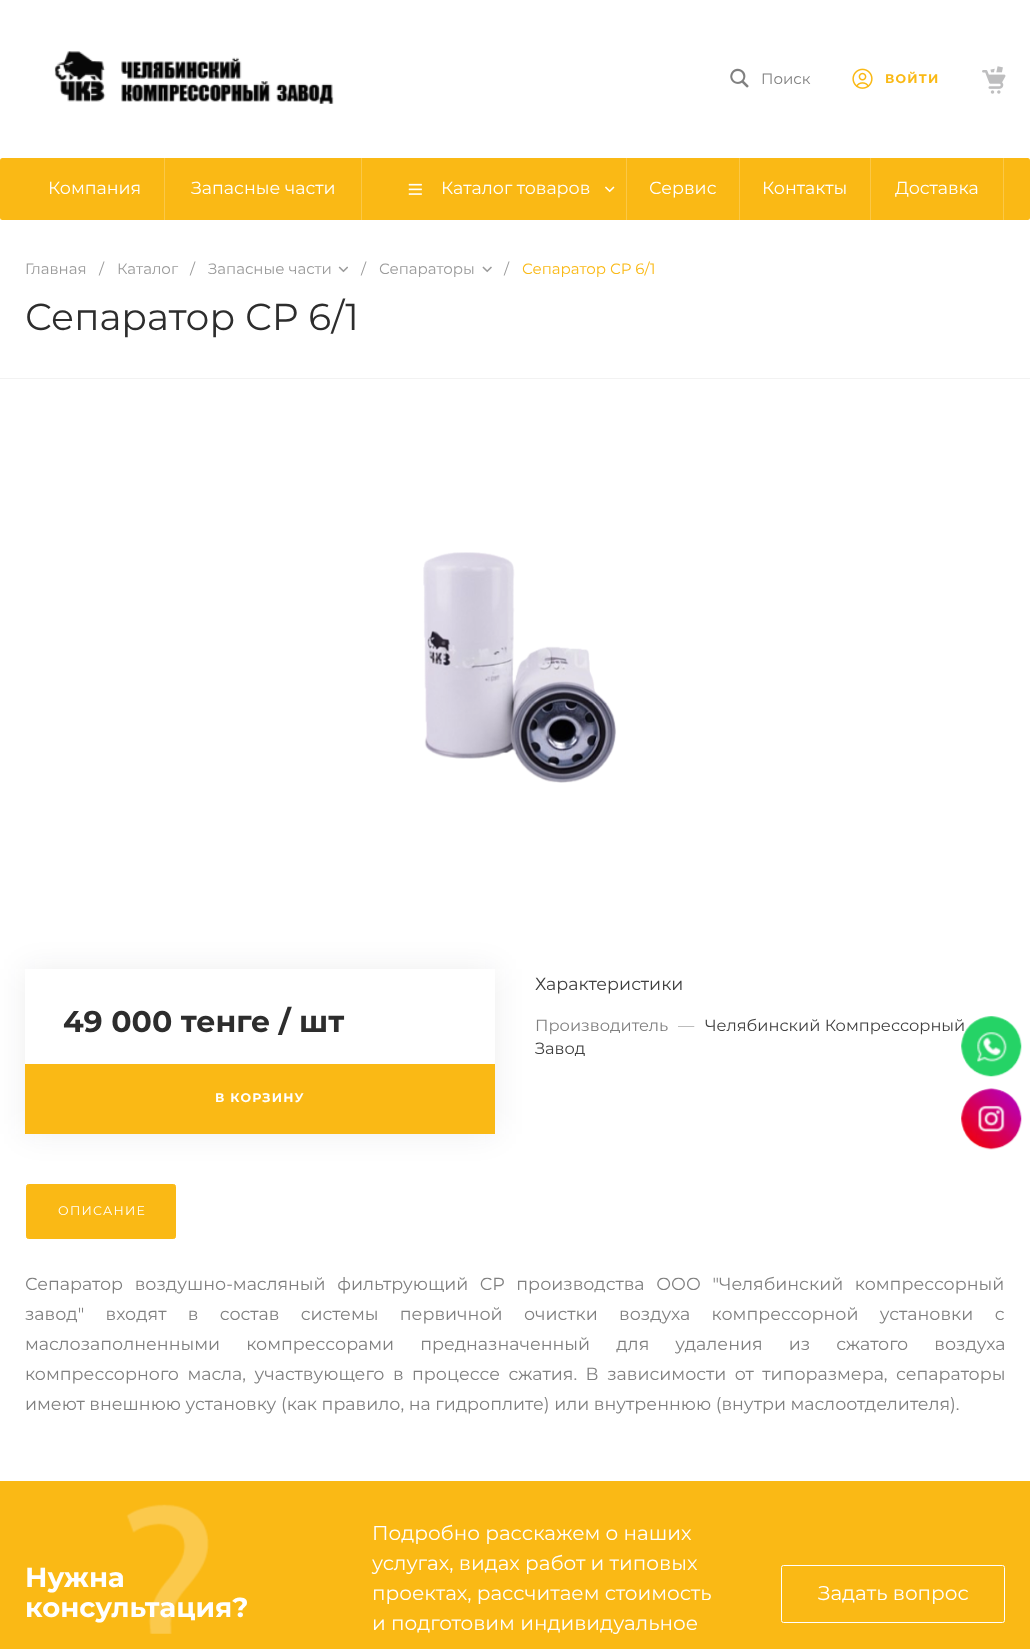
<!DOCTYPE html>
<meta charset="utf-8">
<style>body { margin: 0 } canvas { display: block }</style>
<canvas id="canvas" width="1030" height="1649"></canvas>
<img id="img1" src="img_01.png" hidden>
<img id="img2" src="img_02.png" hidden>
<img id="img3" src="img_03.png" hidden>
<img id="img4" src="img_04.png" hidden>
<img id="img5" src="img_05.png" hidden>
<img id="img6" src="img_06.png" hidden>
<img id="img7" src="img_07.png" hidden>
<img id="img8" src="img_08.png" hidden>
<img id="img9" src="img_09.png" hidden>
<img id="img10" src="img_11.png" hidden>
<img id="img11" src="img_10.png" hidden>
<img id="img12" src="img_12.png" hidden>
<script>
window.onload = function () {
	const canvas = document.getElementById("canvas");
	const ctx = canvas.getContext("2d");
	ctx.miterLimit = 4;
	ctx.fontKerning = "normal";
	function txt(s, x, y) {
		ctx.fillText(s, x, y);
	}
	function fill(x, y, w, h) {
		ctx.fillRect(x, y, w, h);
	}
	function round(x, y, w, h, r) {
		ctx.beginPath();
		ctx.roundRect(x, y, w, h, r);
		ctx.fill();
	}
	function img(id, x, y, w, h) {
		ctx.drawImage(document.getElementById(id), x, y, w, h);
	}

	ctx.fillStyle = "#FFFFFF";
	fill(0, 0, 1030, 1649);
	img("img1", 54, 51, 280, 53);
	img("img2", 730, 68, 19, 20);
	img("img3", 852, 68, 21, 21);
	img("img4", 982, 66, 24, 28);
	ctx.fillStyle = "#FAB915";
	round(0, 158, 1030, 62, 2.5);
	ctx.fillStyle = "#FBC847";
	fill(164, 158, 1, 62);
	fill(361, 158, 1, 62);
	fill(626, 158, 1, 62);
	img("img5", 408, 183, 14, 12);
	img("img6", 605, 186, 10, 7);
	fill(739, 158, 1, 62);
	fill(870, 158, 1, 62);
	fill(1003, 158, 1, 62);
	img("img7", 338, 266, 10, 7);
	img("img8", 482, 266, 10, 7);
	ctx.fillStyle = "#F2F2F2";
	fill(0, 378, 1030, 1);
	img("img9", 423, 552, 194, 231);
	ctx.fillStyle = "rgba(27, 30, 37, 0.08)";
	ctx.filter = "blur(15px)";
	ctx.beginPath();
	ctx.rect(25, 969, 470, 165);
	ctx.fill();
	ctx.filter = "none";
	ctx.fillStyle = "#FFFFFF";
	fill(25, 969, 470, 95);
	ctx.fillStyle = "#FAB915";
	fill(25, 1064, 470, 70);
	ctx.beginPath();
	ctx.roundRect(26.5, 1184.5, 149, 54, 2);
	ctx.fill();
	ctx.strokeStyle = "#FAB915";
	ctx.stroke();
	img("img10", 961, 1088, 61, 62);
	fill(0, 1481, 1030, 168);
	ctx.beginPath();
	ctx.roundRect(781.5, 1565.5, 223, 57, 2);
	ctx.strokeStyle = "#FFFFFF";
	ctx.stroke();
	ctx.font = "15px Montserrat";
	ctx.fillStyle = "#808080";
	txt("Поиск", 761, 84);
	ctx.letterSpacing = "1.25px";
	ctx.font = "bold 12.5px Montserrat";
	ctx.fillStyle = "#FAB915";
	txt("ВОЙТИ", 885, 83);
	ctx.letterSpacing = "0px";
	ctx.font = "17.5px Montserrat";
	ctx.fillStyle = "#FFFFFF";
	txt("Компания", 48, 194);
	txt("Запасные части", 191, 194);
	txt("Каталог товаров", 441, 194);
	txt("Сервис", 649, 194);
	txt("Контакты", 762, 194);
	txt("Доставка", 895, 194);
	ctx.font = "15px Montserrat";
	ctx.fillStyle = "#9A9A9A";
	txt("Главная", 25, 274);
	txt("/", 99, 274);
	txt("Каталог", 117, 274);
	txt("/", 190, 274);
	txt("Запасные части", 208, 274);
	txt("/", 361, 274);
	txt("Сепараторы", 379, 274);
	txt("/", 504, 274);
	ctx.fillStyle = "#FAB915";
	txt("Сепаратор СР 6/1", 522, 274);
	ctx.font = "37.5px Montserrat";
	ctx.fillStyle = "#2D2D2D";
	txt("Сепаратор СР 6/1", 25, 330);
	ctx.font = "bold 30px Montserrat";
	txt("49 000 тенге / шт", 63, 1032);
	ctx.letterSpacing = "1.25px";
	ctx.font = "bold 12.5px Montserrat";
	ctx.fillStyle = "#FFFFFF";
	txt("В КОРЗИНУ", 215, 1102);
	ctx.letterSpacing = "0px";
	ctx.font = "17.5px Montserrat";
	ctx.fillStyle = "#404040";
	txt("Характеристики", 535, 990);
	ctx.font = "16.25px Montserrat";
	ctx.fillStyle = "#808080";
	txt("Производитель", 535, 1031);
	ctx.fillStyle = "#B0B0B0";
	txt("—", 678, 1031);
	ctx.fillStyle = "#404040";
	txt("Челябинский Компрессорный", 705, 1031);
	txt("Завод", 535, 1054);
	ctx.letterSpacing = "1.25px";
	ctx.font = "12.5px Montserrat";
	ctx.fillStyle = "#FFFFFF";
	txt("ОПИСАНИЕ", 58, 1215);
	ctx.letterSpacing = "0px";
	ctx.wordSpacing = "7px";
	ctx.font = "17.5px Montserrat";
	ctx.fillStyle = "#808080";
	txt("Сепаратор воздушно-масляный фильтрующий СР производства ООО \"Челябинский компрессорный", 25, 1290);
	ctx.wordSpacing = "16.75px";
	txt("завод\" входят в состав системы первичной очистки воздуха компрессорной установки с", 25, 1320);
	ctx.wordSpacing = "21.5px";
	txt("маслозаполненными компрессорами предназначенный для удаления из сжатого воздуха", 25, 1350);
	ctx.wordSpacing = "3.9px";
	txt("компрессорного масла, участвующего в процессе сжатия. В зависимости от типоразмера, сепараторы", 25, 1380);
	ctx.wordSpacing = "0px";
	txt("имеют внешнюю установку (как правило, на гидроплите) или внутреннюю (внутри маслоотделителя).", 25, 1410);
	img("img11", 961, 1016, 61, 61);
	ctx.font = "bold 27.5px Montserrat";
	ctx.fillStyle = "#FFFFFF";
	txt("Нужна", 25, 1587);
	txt("консультация?", 25, 1617);
	img("img12", 126, 1504, 83, 130);
	ctx.font = "20px Montserrat";
	txt("Подробно расскажем о наших", 372, 1540);
	txt("услугах, видах работ и типовых", 372, 1570);
	txt("проектах, рассчитаем стоимость", 372, 1600);
	txt("и подготовим индивидуальное", 372, 1630);
	txt("Задать вопрос", 818, 1600);
};
</script>
